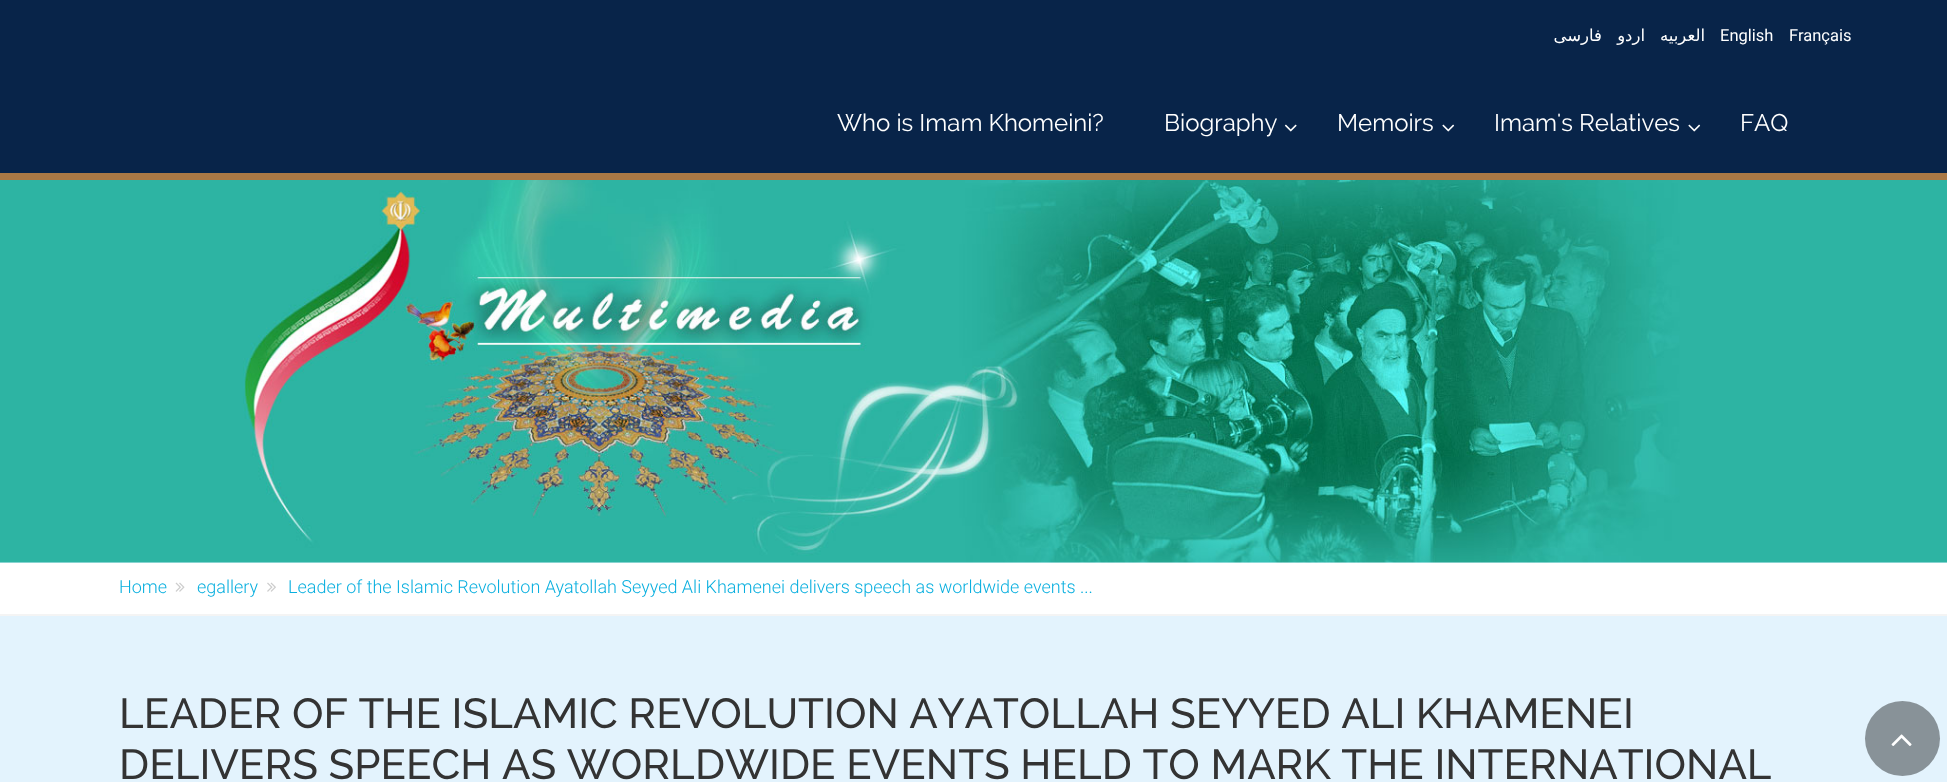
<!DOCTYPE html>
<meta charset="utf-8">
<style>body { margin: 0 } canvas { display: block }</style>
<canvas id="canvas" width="1947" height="782"></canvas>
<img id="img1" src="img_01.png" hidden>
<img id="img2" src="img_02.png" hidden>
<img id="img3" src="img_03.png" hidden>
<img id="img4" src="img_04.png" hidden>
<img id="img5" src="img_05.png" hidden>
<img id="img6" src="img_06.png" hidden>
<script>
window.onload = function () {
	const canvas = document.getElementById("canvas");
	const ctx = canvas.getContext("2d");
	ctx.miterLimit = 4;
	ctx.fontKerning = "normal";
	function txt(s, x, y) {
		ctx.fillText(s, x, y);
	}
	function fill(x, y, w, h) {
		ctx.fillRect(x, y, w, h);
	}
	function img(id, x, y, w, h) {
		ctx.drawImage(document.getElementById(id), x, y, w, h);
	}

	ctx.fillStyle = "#E3F3FD";
	fill(0, 0, 1947, 782);
	ctx.fillStyle = "#082449";
	fill(0, 0, 1947, 173);
	ctx.fillStyle = "#AA7945";
	fill(0, 173, 1947, 7);
	img("img1", 1284, 124, 13, 8);
	img("img2", 1442, 124, 13, 8);
	img("img2", 1688, 124, 13, 8);
	img("img3", 0, 180, 1947, 383);
	ctx.fillStyle = "#FFFFFF";
	fill(0, 563, 1947, 51);
	ctx.fillStyle = "#F4F4F4";
	fill(0, 614, 1947, 2);
	img("img4", 175, 582, 10, 10);
	img("img5", 267, 582, 9, 10);
	ctx.fillStyle = "#889298";
	ctx.beginPath();
	ctx.arc(1902.5, 738.5, 37.5, 0, Math.PI * 2);
	ctx.fill();
	img("img6", 1891, 734, 21, 12);
	ctx.direction = "rtl";
	ctx.font = "16.5px DejaVu Sans";
	ctx.fillStyle = "#FFFFFF";
	txt("فارسی", 1602, 41);
	txt("اردو", 1645, 41);
	txt("العربیه", 1705, 41);
	ctx.direction = "ltr";
	ctx.font = "16.5px Roboto";
	txt("English", 1720, 41);
	txt("Français", 1789, 41);
	ctx.font = "24px Raleway";
	txt("Who is Imam Khomeini?", 837, 131);
	txt("Biography", 1164, 131);
	txt("Memoirs", 1337, 131);
	txt("Imam's Relatives", 1494, 131);
	txt("FAQ", 1740, 131);
	ctx.font = "300 18px Roboto";
	ctx.fillStyle = "#09AFDF";
	txt("Home", 119, 593);
	txt("egallery", 197, 593);
	txt("Leader of the Islamic Revolution Ayatollah Seyyed Ali Khamenei delivers speech as worldwide events ...", 288, 593);
	ctx.font = "500 42px Raleway";
	ctx.fillStyle = "#333333";
	txt("LEADER OF THE ISLAMIC REVOLUTION AYATOLLAH SEYYED ALI KHAMENEI", 119, 728);
	txt("DELIVERS SPEECH AS WORLDWIDE EVENTS HELD TO MARK THE INTERNATIONAL", 119, 779);
};
</script>
